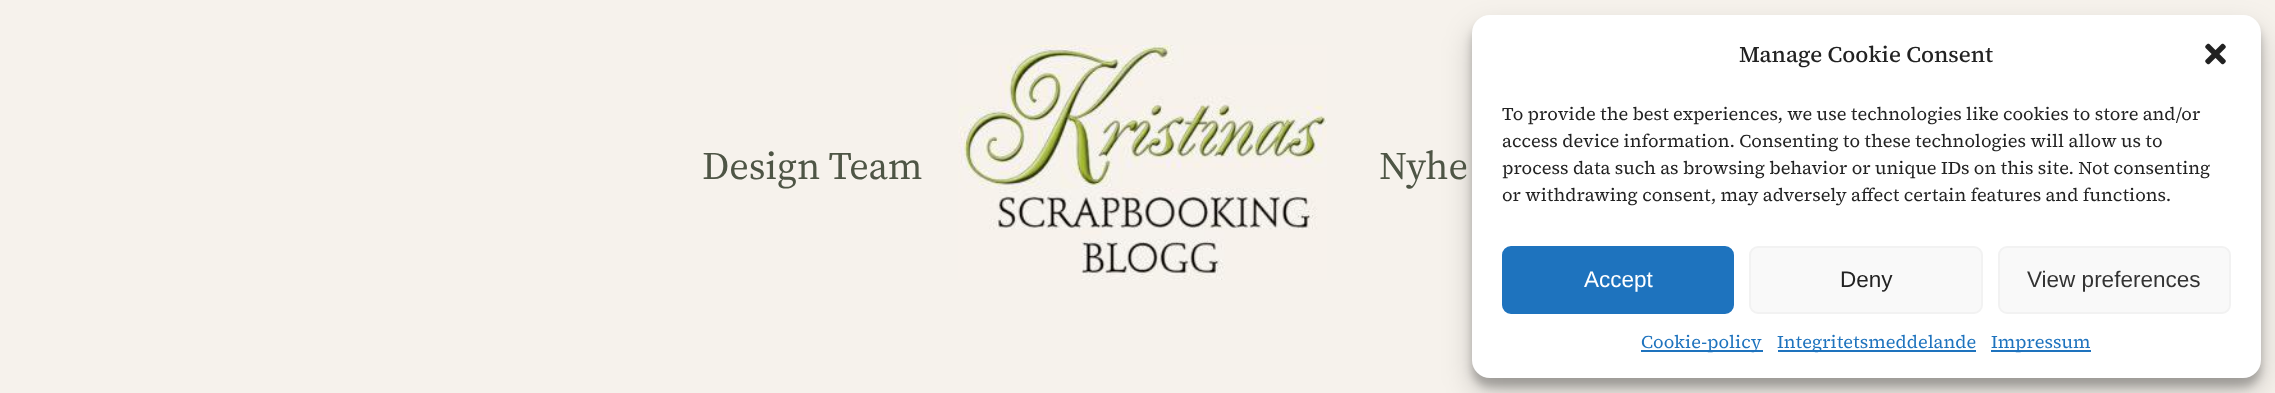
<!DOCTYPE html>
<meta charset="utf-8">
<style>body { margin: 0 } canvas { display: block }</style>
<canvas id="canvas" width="2275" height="393"></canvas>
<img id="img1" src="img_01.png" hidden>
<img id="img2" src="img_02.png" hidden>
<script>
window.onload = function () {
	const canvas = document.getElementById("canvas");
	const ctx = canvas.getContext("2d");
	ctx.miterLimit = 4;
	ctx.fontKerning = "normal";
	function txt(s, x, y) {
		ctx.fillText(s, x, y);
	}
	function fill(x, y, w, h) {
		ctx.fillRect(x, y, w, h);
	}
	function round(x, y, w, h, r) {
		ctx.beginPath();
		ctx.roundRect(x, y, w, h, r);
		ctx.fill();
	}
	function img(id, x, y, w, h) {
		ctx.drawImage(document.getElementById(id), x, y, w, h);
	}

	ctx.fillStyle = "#F6F2EC";
	fill(0, 0, 2275, 393);
	img("img1", 958, 45, 369, 235);
	ctx.fillStyle = "rgba(0, 0, 0, 0.23)";
	ctx.filter = "blur(4.5px)";
	ctx.beginPath();
	ctx.roundRect(1472, 24, 789, 363, 18);
	ctx.fill();
	ctx.filter = "none";
	ctx.fillStyle = "rgba(0, 0, 0, 0.19)";
	ctx.filter = "blur(15px)";
	ctx.beginPath();
	ctx.roundRect(1472, 30, 789, 363, 18);
	ctx.fill();
	ctx.filter = "none";
	ctx.fillStyle = "#FFFFFF";
	round(1472, 15, 789, 363, 18);
	img("img2", 2205, 43, 21, 22);
	ctx.fillStyle = "#1E73BE";
	ctx.beginPath();
	ctx.roundRect(1503, 247, 230, 66, 8);
	ctx.fill();
	ctx.strokeStyle = "#1E73BE";
	ctx.lineWidth = 2;
	ctx.stroke();
	ctx.fillStyle = "#F9F9F9";
	ctx.beginPath();
	ctx.roundRect(1750, 247, 232, 66, 8);
	ctx.fill();
	ctx.strokeStyle = "#F2F2F2";
	ctx.stroke();
	ctx.beginPath();
	ctx.roundRect(1999, 247, 231, 66, 8);
	ctx.fill();
	ctx.stroke();
	ctx.fillStyle = "#1E73BE";
	fill(1641, 350, 122, 2);
	fill(1778, 350, 198, 2);
	fill(1991, 350, 100, 2);
	ctx.font = "39px 'Source Serif 4'";
	ctx.fillStyle = "#4E5545";
	txt("Design Team", 702, 179);
	txt("Nyhe", 1379, 179);
	ctx.font = "500 22.5px 'Source Serif 4'";
	ctx.fillStyle = "#222222";
	txt("Manage Cookie Consent", 1739, 62);
	ctx.font = "18px 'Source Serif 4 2'";
	txt("To provide the best experiences, we use technologies like cookies to store and/or", 1502, 120);
	txt("access device information. Consenting to these technologies will allow us to", 1502, 147);
	txt("process data such as browsing behavior or unique IDs on this site. Not consenting", 1502, 174);
	txt("or withdrawing consent, may adversely affect certain features and functions.", 1502, 201);
	ctx.font = "22.5px Liberation Sans";
	ctx.fillStyle = "#FFFFFF";
	txt("Accept", 1584, 287);
	ctx.fillStyle = "#222222";
	txt("Deny", 1840, 287);
	ctx.fillStyle = "#333333";
	txt("View preferences", 2027, 287);
	ctx.font = "18px 'Source Serif 4 2'";
	ctx.fillStyle = "#1E73BE";
	txt("Cookie-policy", 1641, 348);
	txt("Integritetsmeddelande", 1777, 348);
	txt("Impressum", 1991, 348);
};
</script>
